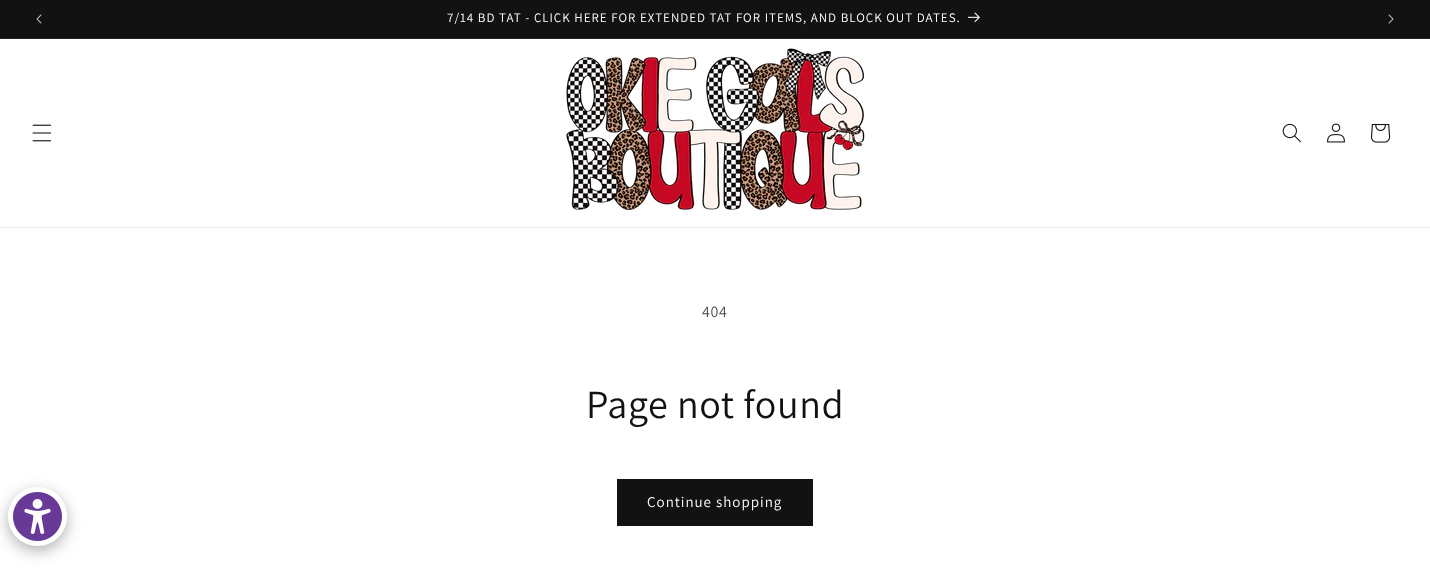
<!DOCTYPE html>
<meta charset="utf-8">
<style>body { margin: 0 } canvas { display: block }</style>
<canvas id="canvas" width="1430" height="569"></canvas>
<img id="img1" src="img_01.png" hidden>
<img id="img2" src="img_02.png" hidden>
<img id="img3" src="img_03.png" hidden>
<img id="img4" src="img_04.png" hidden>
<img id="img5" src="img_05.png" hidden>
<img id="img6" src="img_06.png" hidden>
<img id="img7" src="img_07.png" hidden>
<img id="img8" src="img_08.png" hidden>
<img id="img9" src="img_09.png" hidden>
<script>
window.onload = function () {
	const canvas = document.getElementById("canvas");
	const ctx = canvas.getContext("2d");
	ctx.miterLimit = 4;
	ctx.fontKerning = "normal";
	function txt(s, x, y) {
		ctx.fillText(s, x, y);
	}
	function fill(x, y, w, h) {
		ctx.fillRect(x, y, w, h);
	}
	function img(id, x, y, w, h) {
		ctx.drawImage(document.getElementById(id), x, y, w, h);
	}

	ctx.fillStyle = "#FFFFFF";
	fill(0, 0, 1430, 569);
	ctx.fillStyle = "rgba(0, 0, 0, 0.3)";
	ctx.filter = "blur(7.5px)";
	ctx.beginPath();
	ctx.roundRect(8, 492, 59, 59, 29.5);
	ctx.fill();
	ctx.filter = "none";
	img("img1", 8, 487, 59, 59);
	ctx.fillStyle = "#121212";
	fill(0, 0, 1430, 38);
	ctx.fillStyle = "#252525";
	fill(0, 38, 1430, 1);
	img("img2", 36, 14, 6, 10);
	img("img3", 968, 12, 12, 11);
	img("img4", 1388, 14, 6, 10);
	ctx.fillStyle = "#ECECEC";
	fill(0, 227, 1430, 1);
	img("img5", 32, 124, 20, 18);
	img("img6", 566, 48, 299, 162);
	img("img7", 1282, 123, 19, 20);
	img("img8", 1327, 123, 18, 20);
	img("img9", 1371, 124, 20, 19);
	ctx.fillStyle = "#121212";
	fill(617, 479, 196, 47);
	ctx.letterSpacing = "1px";
	ctx.font = "13px Assistant";
	ctx.fillStyle = "#FFFFFF";
	txt("7/14 BD TAT - CLICK HERE FOR EXTENDED TAT FOR ITEMS, AND BLOCK OUT DATES.", 447, 22);
	ctx.letterSpacing = "0.6px";
	ctx.font = "16px Assistant";
	ctx.fillStyle = "#4D4D4D";
	txt("404", 702, 317);
	ctx.font = "40px Assistant";
	ctx.fillStyle = "#121212";
	txt("Page not found", 586, 418);
	ctx.letterSpacing = "1px";
	ctx.font = "15px Assistant";
	ctx.fillStyle = "#FFFFFF";
	txt("Continue shopping", 647, 507);
};
</script>
